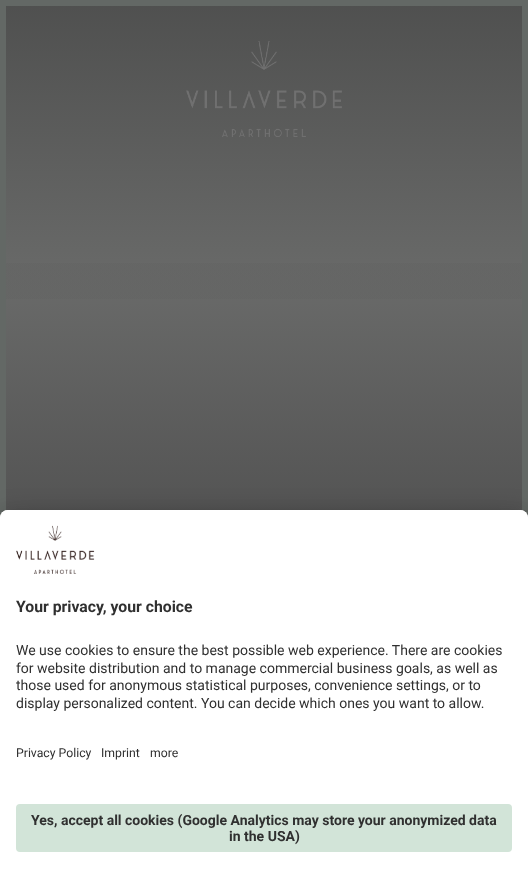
<!DOCTYPE html>
<meta charset="utf-8">
<style>body { margin: 0 } canvas { display: block }</style>
<canvas id="canvas" width="528" height="880"></canvas>
<img id="img1" src="img_01.png" hidden>
<img id="img2" src="img_02.png" hidden>
<script>
window.onload = function () {
	const canvas = document.getElementById("canvas");
	const ctx = canvas.getContext("2d");
	ctx.miterLimit = 4;
	ctx.fontKerning = "normal";
	function txt(s, x, y) {
		ctx.fillText(s, x, y);
	}
	function fill(x, y, w, h) {
		ctx.fillRect(x, y, w, h);
	}
	function round(x, y, w, h, r) {
		ctx.beginPath();
		ctx.roundRect(x, y, w, h, r);
		ctx.fill();
	}
	function img(id, x, y, w, h) {
		ctx.drawImage(document.getElementById(id), x, y, w, h);
	}
	let gradient;

	ctx.fillStyle = "#6D6E6D";
	fill(0, 0, 528, 880);
	gradient = ctx.createLinearGradient(264, 556, 264, 236);
	gradient.addColorStop(0, "#505050");
	gradient.addColorStop(1, "#6D6E6D");
	ctx.fillStyle = gradient;
	fill(6, 263, 516, 248);
	ctx.strokeStyle = "#636865";
	ctx.lineWidth = 6;
	ctx.strokeRect(3, 3, 522, 874);
	gradient = ctx.createLinearGradient(264, 6, 264, 326);
	gradient.addColorStop(0, "rgba(36, 36, 36, 0.4)");
	gradient.addColorStop(1, "rgba(36, 36, 36, 0)");
	ctx.fillStyle = gradient;
	fill(6, 6, 516, 293);
	img("img1", 186, 41, 156, 96);
	ctx.fillStyle = "rgba(0, 0, 0, 0.3)";
	ctx.filter = "blur(14px)";
	ctx.beginPath();
	ctx.roundRect(0, 530, 528, 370, 8);
	ctx.fill();
	ctx.filter = "none";
	ctx.fillStyle = "rgba(0, 0, 0, 0.22)";
	ctx.filter = "blur(13px)";
	ctx.beginPath();
	ctx.roundRect(0, 515, 528, 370, 8);
	ctx.fill();
	ctx.filter = "none";
	ctx.fillStyle = "#FFFFFF";
	ctx.beginPath();
	ctx.roundRect(0, 510, 528, 370, [8, 8, 0, 0]);
	ctx.fill();
	ctx.beginPath();
	ctx.roundRect(0, 510, 528, 282, [8, 8, 0, 0]);
	ctx.fill();
	img("img2", 16, 525, 79, 49);
	ctx.fillStyle = "#D2E4D8";
	round(16, 804, 496, 48, 4);
	ctx.font = "bold 15.75px Roboto";
	ctx.fillStyle = "#303030";
	txt("Your privacy, your choice", 16, 612);
	ctx.font = "14px Roboto";
	txt("We use cookies to ensure the best possible web experience. There are cookies", 16, 655);
	txt("for website distribution and to manage commercial business goals, as well as", 16, 673);
	txt("those used for anonymous statistical purposes, convenience settings, or to", 16, 690);
	txt("display personalized content. You can decide which ones you want to allow.", 16, 708);
	ctx.font = "12.25px Roboto";
	txt("Privacy Policy", 16, 757);
	txt("Imprint", 101, 757);
	txt("more", 150, 757);
	ctx.font = "bold 14px Roboto";
	txt("Yes, accept all cookies (Google Analytics may store your anonymized data", 31, 825);
	txt("in the USA)", 229, 841);
};
</script>
